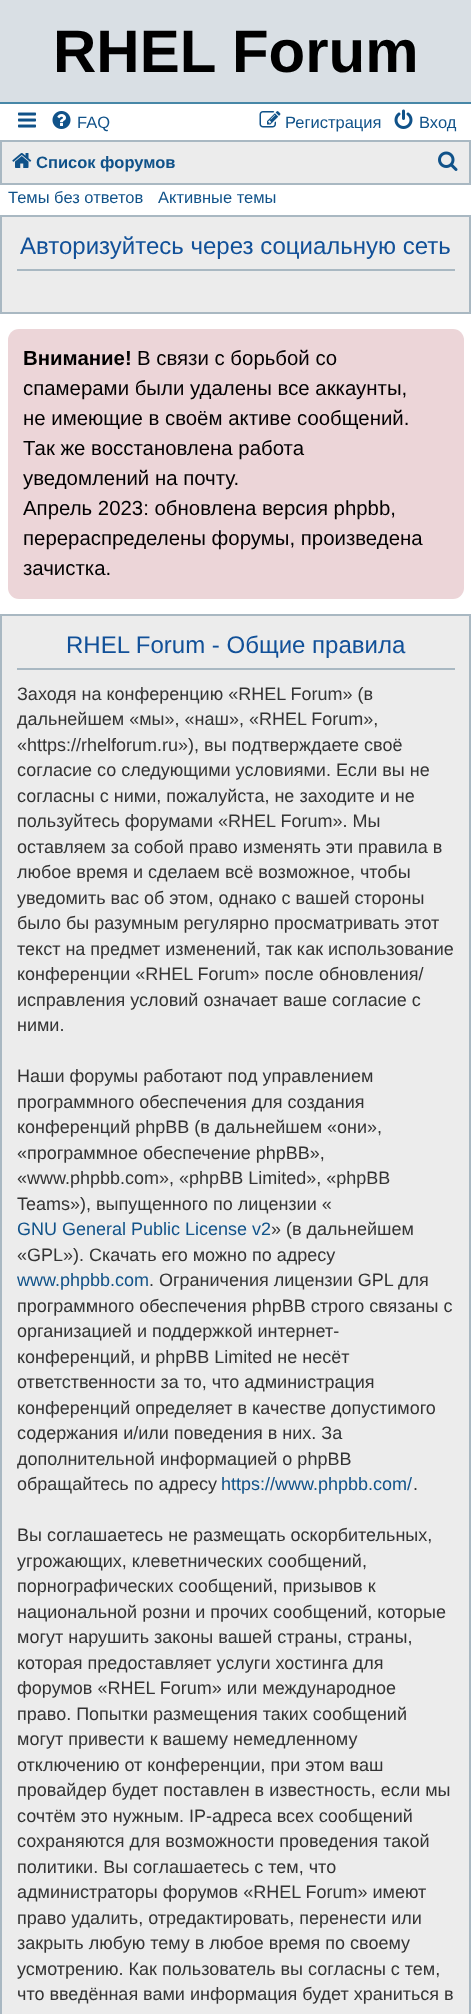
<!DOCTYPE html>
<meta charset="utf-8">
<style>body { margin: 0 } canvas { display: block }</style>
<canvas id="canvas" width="471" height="2014"></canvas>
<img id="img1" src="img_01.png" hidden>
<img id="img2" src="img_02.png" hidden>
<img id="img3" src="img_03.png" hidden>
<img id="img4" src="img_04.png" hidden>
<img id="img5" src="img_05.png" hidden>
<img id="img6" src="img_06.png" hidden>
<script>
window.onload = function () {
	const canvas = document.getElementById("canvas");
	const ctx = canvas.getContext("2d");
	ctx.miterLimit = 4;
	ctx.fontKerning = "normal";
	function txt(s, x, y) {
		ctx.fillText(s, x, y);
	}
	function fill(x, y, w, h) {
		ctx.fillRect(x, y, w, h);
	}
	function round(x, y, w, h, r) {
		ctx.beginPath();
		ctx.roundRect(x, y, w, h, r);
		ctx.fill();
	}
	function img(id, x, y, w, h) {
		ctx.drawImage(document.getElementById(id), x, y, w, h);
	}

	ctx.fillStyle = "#FFFFFF";
	fill(0, 0, 471, 2014);
	ctx.fillStyle = "#D9DFE4";
	fill(0, 0, 471, 102);
	ctx.fillStyle = "#4787A7";
	fill(0, 102, 471, 2);
	img("img1", 18, 112, 18, 16);
	img("img2", 52, 111, 19, 18);
	img("img3", 259, 111, 22, 17);
	img("img4", 394, 109, 19, 20);
	ctx.fillStyle = "#ECECEC";
	ctx.beginPath();
	ctx.rect(1, 141, 469, 43);
	ctx.fill();
	ctx.strokeStyle = "#A9B8C2";
	ctx.lineWidth = 2;
	ctx.stroke();
	img("img5", 12, 153, 20, 15);
	img("img6", 438, 151, 20, 20);
	ctx.beginPath();
	ctx.rect(1, 216, 469, 97);
	ctx.fill();
	ctx.stroke();
	ctx.fillStyle = "#A9B8C2";
	fill(17, 269, 438, 2);
	ctx.fillStyle = "#ECD5D8";
	round(8, 329, 456, 270, 11);
	ctx.fillStyle = "#ECECEC";
	ctx.beginPath();
	ctx.rect(1, 615, 469, 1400);
	ctx.fill();
	ctx.stroke();
	ctx.fillStyle = "#A9B8C2";
	fill(17, 668, 438, 2);
	ctx.font = "bold 60px Liberation Sans";
	ctx.fillStyle = "#000000";
	txt("RHEL Forum", 53, 72);
	ctx.font = "16.5px Liberation Sans";
	ctx.fillStyle = "#105289";
	txt("FAQ", 77, 128);
	txt("Регистрация", 285, 128);
	txt("Вход", 419, 128);
	ctx.font = "bold 16.5px Liberation Sans";
	txt("Список форумов", 36, 168);
	ctx.font = "16.5px Liberation Sans";
	txt("Темы без ответов", 8, 203);
	txt("Активные темы", 158, 203);
	ctx.font = "24px Liberation Sans";
	ctx.fillStyle = "#115098";
	txt("Авторизуйтесь через социальную сеть", 20, 254);
	ctx.font = "bold 20.4px Liberation Sans";
	ctx.fillStyle = "#000000";
	txt("Внимание!", 23, 365);
	ctx.font = "20.4px Liberation Sans";
	txt("В связи с борьбой со", 137, 365);
	txt("спамерами были удалены все аккаунты,", 23, 395);
	txt("не имеющие в своём активе сообщений.", 23, 425);
	txt("Так же восстановлена работа", 23, 455);
	txt("уведомлений на почту.", 23, 485);
	txt("Апрель 2023: обновлена версия phpbb,", 23, 515);
	txt("перераспределены форумы, произведена", 23, 545);
	txt("зачистка.", 23, 575);
	ctx.font = "24px Liberation Sans";
	ctx.fillStyle = "#115098";
	txt("RHEL Forum - Общие правила", 66, 653);
	ctx.font = "18px Liberation Sans";
	ctx.fillStyle = "#333333";
	txt("Заходя на конференцию «RHEL Forum» (в", 17, 700);
	ctx.save();
	ctx.beginPath();
	ctx.rect(17, 623, 438, 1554);
	ctx.clip();
	txt("дальнейшем «мы», «наш», «RHEL Forum»,", 17, 725);
	ctx.restore();
	txt("«https://rhelforum.ru»), вы подтверждаете своё", 17, 751);
	txt("согласие со следующими условиями. Если вы не", 17, 776);
	txt("согласны с ними, пожалуйста, не заходите и не", 17, 802);
	txt("пользуйтесь форумами «RHEL Forum». Мы", 17, 827);
	txt("оставляем за собой право изменять эти правила в", 17, 853);
	txt("любое время и сделаем всё возможное, чтобы", 17, 878);
	txt("уведомить вас об этом, однако с вашей стороны", 17, 904);
	txt("было бы разумным регулярно просматривать этот", 17, 929);
	txt("текст на предмет изменений, так как использование", 17, 955);
	txt("конференции «RHEL Forum» после обновления/", 17, 980);
	txt("исправления условий означает ваше согласие с", 17, 1006);
	txt("ними.", 17, 1031);
	txt("Наши форумы работают под управлением", 17, 1082);
	txt("программного обеспечения для создания", 17, 1108);
	txt("конференций phpBB (в дальнейшем «они»,", 17, 1133);
	txt("«программное обеспечение phpBB»,", 17, 1159);
	txt("«www.phpbb.com», «phpBB Limited», «phpBB", 17, 1184);
	txt("Teams»), выпущенного по лицензии «", 17, 1210);
	ctx.fillStyle = "#105289";
	txt("GNU General Public License v2", 17, 1235);
	ctx.fillStyle = "#333333";
	txt("» (в дальнейшем", 271, 1235);
	txt("«GPL»). Скачать его можно по адресу", 17, 1261);
	ctx.fillStyle = "#105289";
	txt("www.phpbb.com", 17, 1286);
	ctx.fillStyle = "#333333";
	txt(". Ограничения лицензии GPL для", 149, 1286);
	txt("программного обеспечения phpBB строго связаны с", 17, 1312);
	txt("организацией и поддержкой интернет-", 17, 1337);
	txt("конференций, и phpBB Limited не несёт", 17, 1363);
	txt("ответственности за то, что администрация", 17, 1388);
	txt("конференций определяет в качестве допустимого", 17, 1414);
	txt("содержания и/или поведения в них. За", 17, 1439);
	ctx.save();
	ctx.beginPath();
	ctx.rect(17, 623, 438, 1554);
	ctx.clip();
	txt("дополнительной информацией о phpBB", 17, 1465);
	ctx.restore();
	txt("обращайтесь по адресу", 17, 1490);
	ctx.fillStyle = "#105289";
	txt("https://www.phpbb.com/", 221, 1490);
	ctx.fillStyle = "#333333";
	txt(".", 413, 1490);
	txt("Вы соглашаетесь не размещать оскорбительных,", 17, 1541);
	txt("угрожающих, клеветнических сообщений,", 17, 1567);
	txt("порнографических сообщений, призывов к", 17, 1592);
	txt("национальной розни и прочих сообщений, которые", 17, 1618);
	txt("могут нарушить законы вашей страны, страны,", 17, 1643);
	txt("которая предоставляет услуги хостинга для", 17, 1669);
	txt("форумов «RHEL Forum» или международное", 17, 1694);
	txt("право. Попытки размещения таких сообщений", 17, 1720);
	txt("могут привести к вашему немедленному", 17, 1745);
	txt("отключению от конференции, при этом ваш", 17, 1771);
	txt("провайдер будет поставлен в известность, если мы", 17, 1796);
	txt("сочтём это нужным. IP-адреса всех сообщений", 17, 1822);
	txt("сохраняются для возможности проведения такой", 17, 1847);
	txt("политики. Вы соглашаетесь с тем, что", 17, 1873);
	txt("администраторы форумов «RHEL Forum» имеют", 17, 1898);
	txt("право удалить, отредактировать, перенести или", 17, 1924);
	txt("закрыть любую тему в любое время по своему", 17, 1949);
	txt("усмотрению. Как пользователь вы согласны с тем,", 17, 1975);
	txt("что введённая вами информация будет храниться в", 17, 2000);
};
</script>
